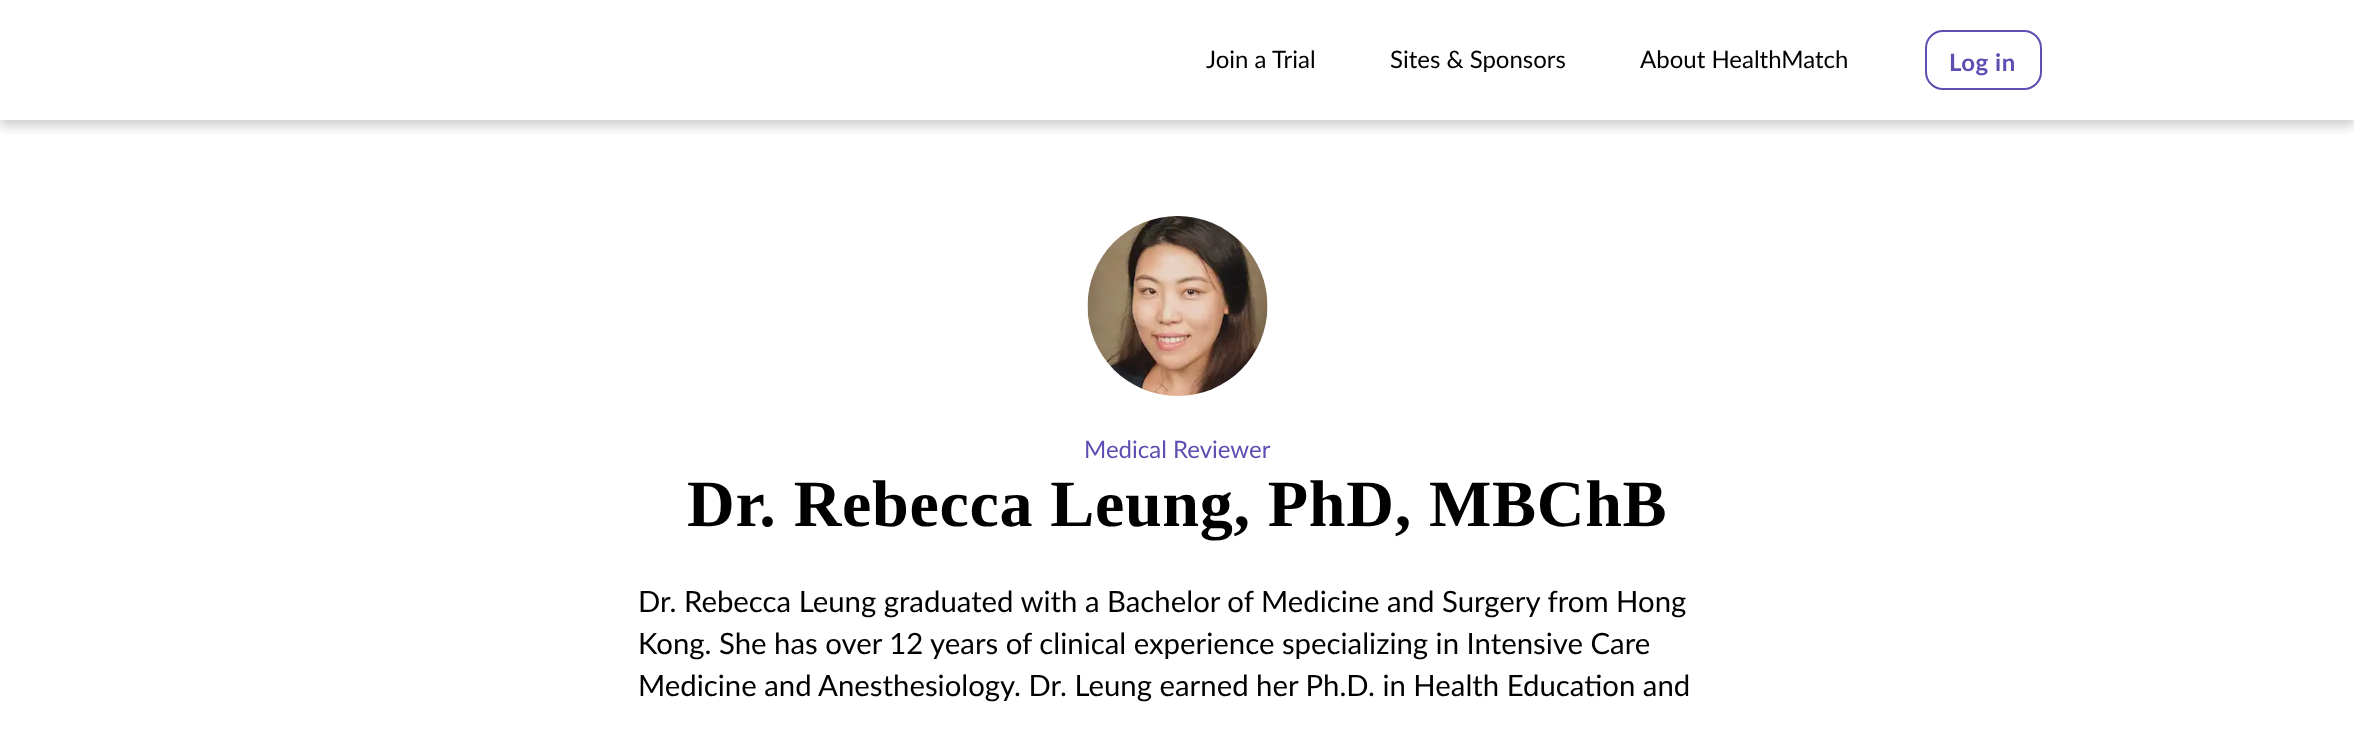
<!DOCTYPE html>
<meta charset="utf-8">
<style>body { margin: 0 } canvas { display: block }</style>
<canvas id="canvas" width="2354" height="732"></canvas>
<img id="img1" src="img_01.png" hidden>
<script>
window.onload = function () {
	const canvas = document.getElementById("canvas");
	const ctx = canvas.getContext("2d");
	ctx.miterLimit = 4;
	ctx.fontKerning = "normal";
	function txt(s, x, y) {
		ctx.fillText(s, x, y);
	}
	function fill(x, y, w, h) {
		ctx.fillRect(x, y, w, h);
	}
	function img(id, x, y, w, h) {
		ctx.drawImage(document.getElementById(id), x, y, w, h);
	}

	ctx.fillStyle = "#FFFFFF";
	fill(0, 0, 2354, 732);
	ctx.save();
	ctx.beginPath();
	ctx.rect(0, 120, 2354, 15);
	ctx.clip();
	ctx.fillStyle = "rgba(91, 91, 91, 0.3)";
	ctx.filter = "blur(6px)";
	ctx.beginPath();
	ctx.rect(0, 6, 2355, 120);
	ctx.fill();
	ctx.filter = "none";
	ctx.restore();
	ctx.beginPath();
	ctx.roundRect(1926, 31, 115, 58, 17);
	ctx.strokeStyle = "#5E4DB2";
	ctx.lineWidth = 2;
	ctx.stroke();
	img("img1", 1087, 216, 181, 180);
	ctx.font = "24px Lato";
	ctx.fillStyle = "#000000";
	txt("Join a Trial", 1206, 68);
	txt("Sites & Sponsors", 1390, 68);
	txt("About HealthMatch", 1640, 68);
	ctx.letterSpacing = "0.5px";
	ctx.font = "bold 24px Lato";
	ctx.fillStyle = "#5E4DB2";
	txt("Log in", 1949, 71);
	ctx.letterSpacing = "0px";
	ctx.font = "24px Lato";
	txt("Medical Reviewer", 1084, 458);
	ctx.letterSpacing = "0.65px";
	ctx.font = "bold 66.1px Liberation Serif";
	ctx.fillStyle = "#000000";
	txt("Dr. Rebecca Leung, PhD, MBChB", 687, 526);
	ctx.letterSpacing = "0px";
	ctx.font = "29.35px Lato";
	txt("Dr. Rebecca Leung graduated with a Bachelor of Medicine and Surgery from Hong", 638, 612);
	txt("Kong. She has over 12 years of clinical experience specializing in Intensive Care", 638, 654);
	txt("Medicine and Anesthesiology. Dr. Leung earned her Ph.D. in Health Education and", 638, 696);
};
</script>
